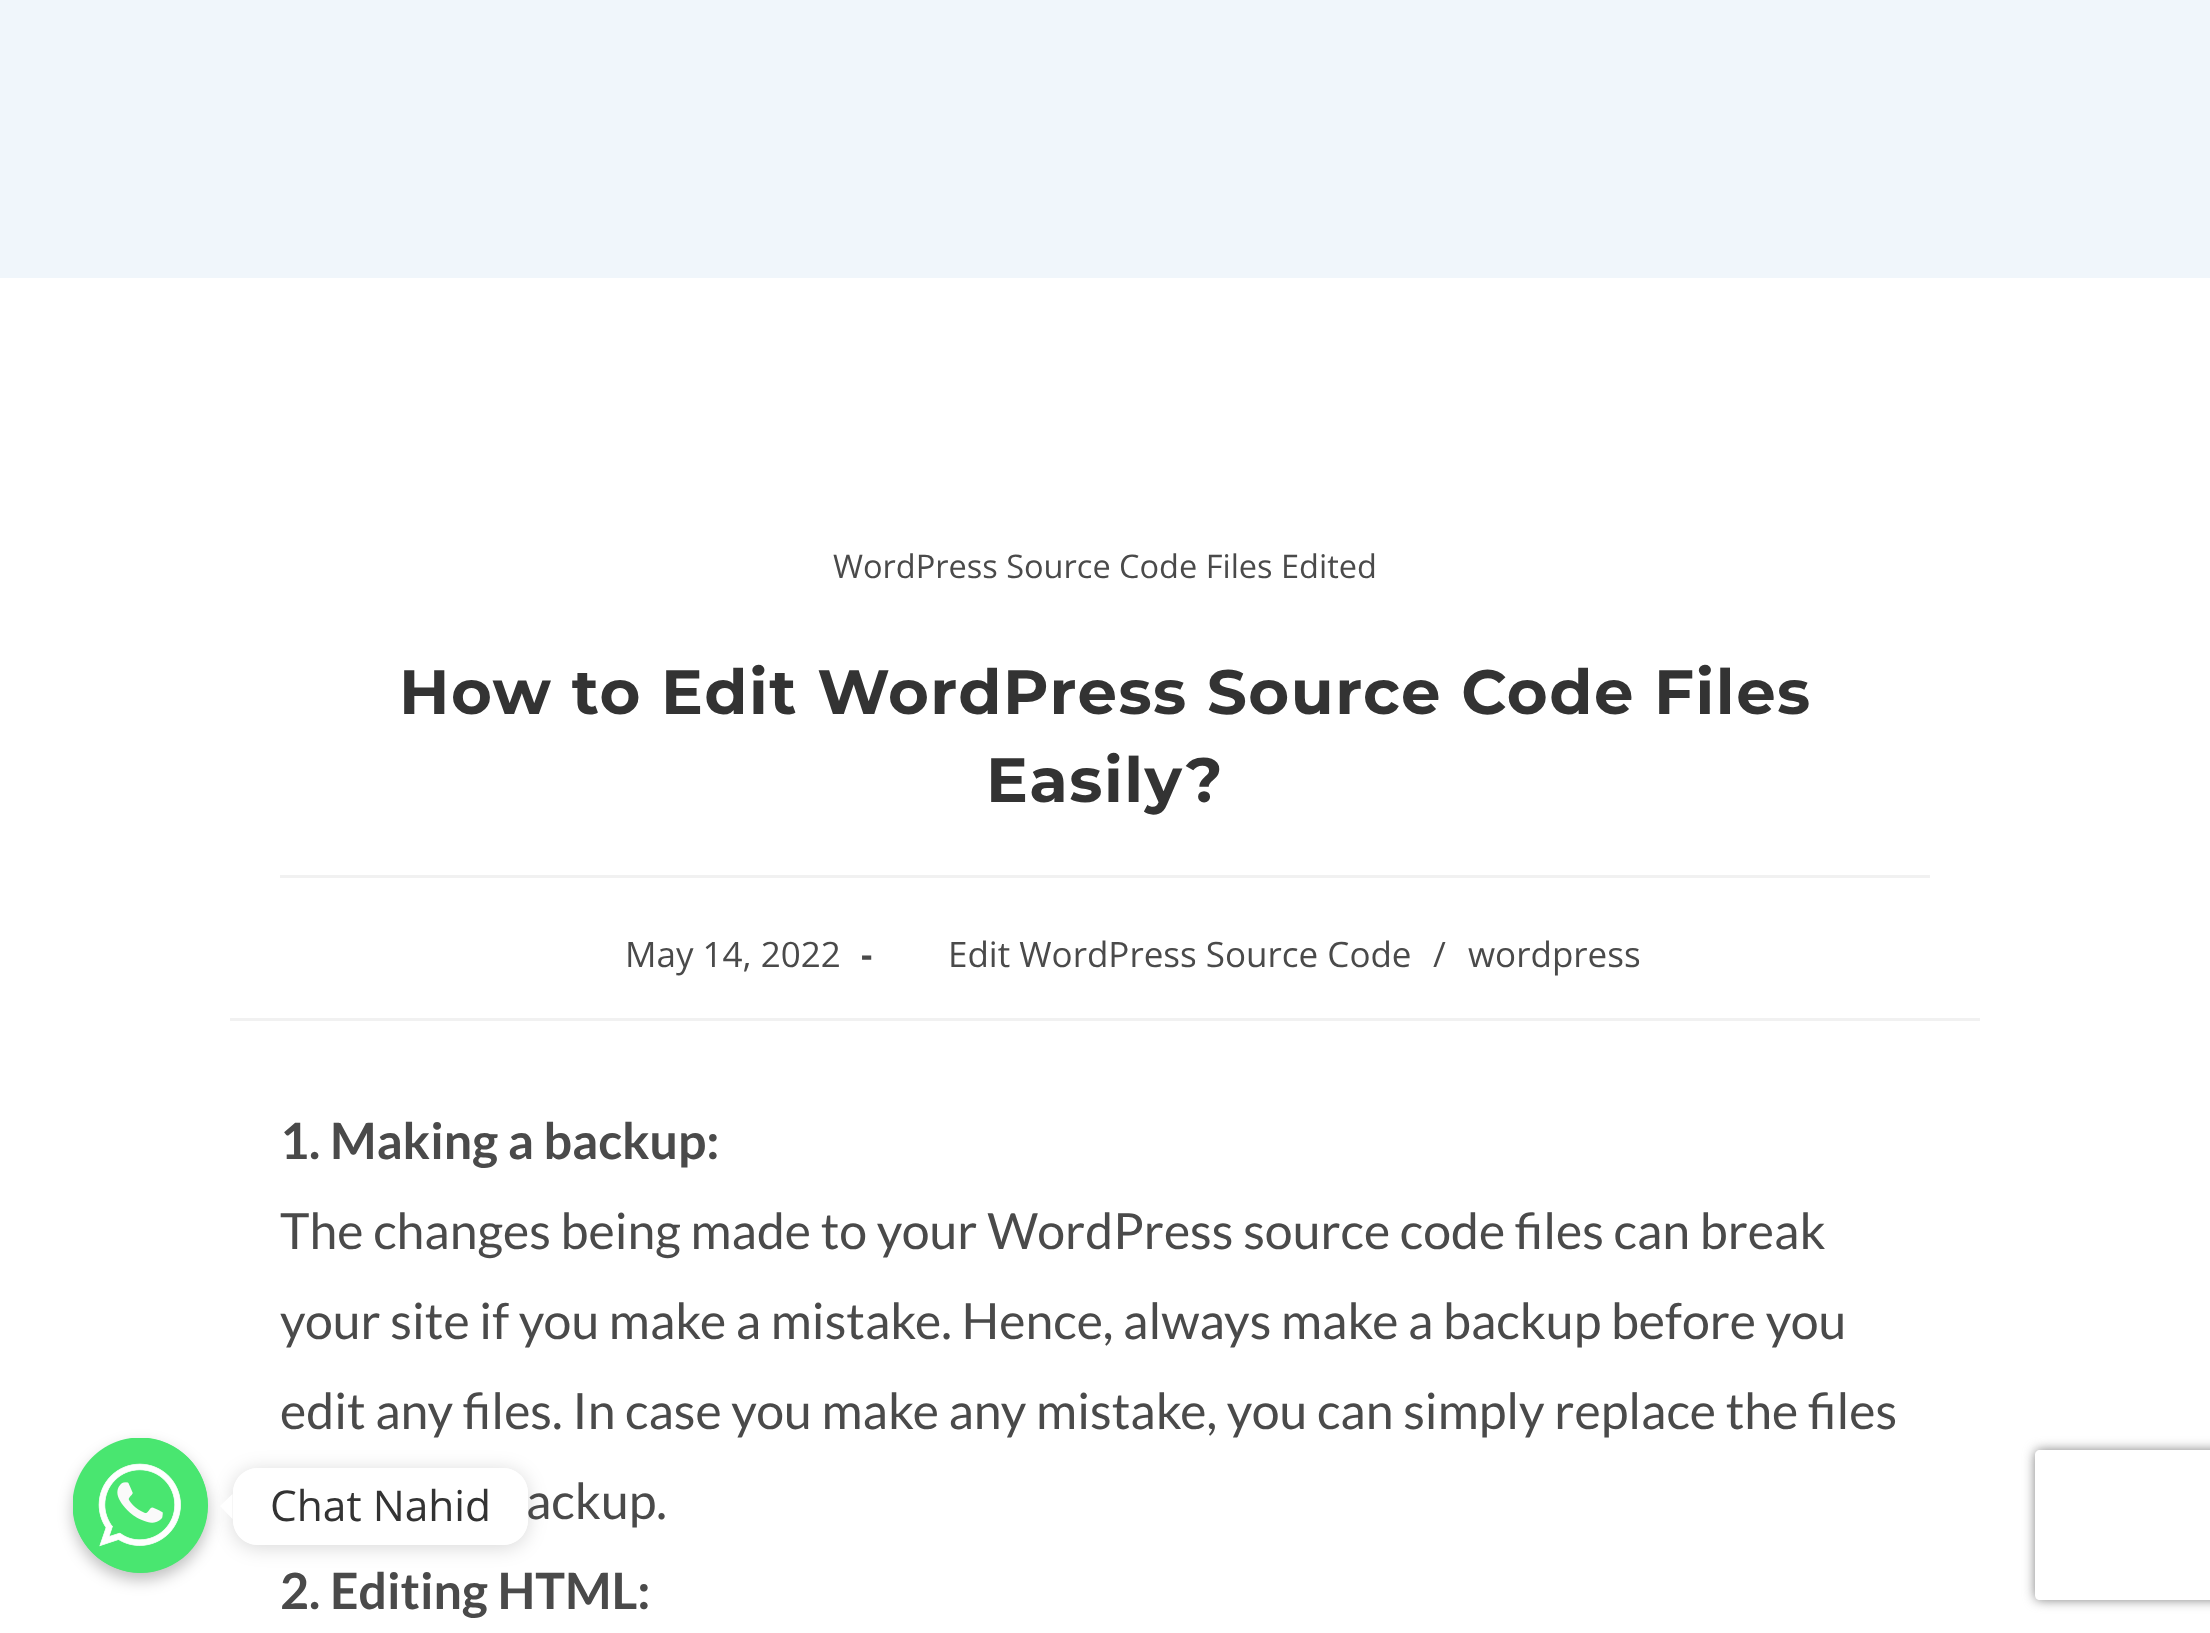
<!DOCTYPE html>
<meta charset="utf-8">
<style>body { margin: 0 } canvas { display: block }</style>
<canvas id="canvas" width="2210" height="1633"></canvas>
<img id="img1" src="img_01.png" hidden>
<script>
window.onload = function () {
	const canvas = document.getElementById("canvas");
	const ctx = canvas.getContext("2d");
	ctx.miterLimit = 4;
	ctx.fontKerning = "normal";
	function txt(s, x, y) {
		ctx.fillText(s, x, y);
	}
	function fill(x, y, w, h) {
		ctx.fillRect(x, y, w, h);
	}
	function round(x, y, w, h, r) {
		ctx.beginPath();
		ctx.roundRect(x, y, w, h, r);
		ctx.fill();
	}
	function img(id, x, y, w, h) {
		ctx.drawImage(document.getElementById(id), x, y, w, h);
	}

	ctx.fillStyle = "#FFFFFF";
	fill(0, 0, 2210, 1633);
	ctx.fillStyle = "#F0F6FB";
	fill(0, 0, 2210, 278);
	ctx.fillStyle = "#F1F1F1";
	fill(280, 875, 1650, 3);
	fill(230, 1018, 1750, 3);
	ctx.save();
	ctx.beginPath();
	ctx.moveTo(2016, 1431);
	ctx.lineTo(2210, 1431);
	ctx.lineTo(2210, 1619);
	ctx.lineTo(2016, 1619);
	ctx.closePath();
	ctx.moveTo(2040, 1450);
	ctx.lineTo(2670, 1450);
	ctx.bezierCurveTo(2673, 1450, 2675, 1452, 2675, 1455);
	ctx.lineTo(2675, 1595);
	ctx.bezierCurveTo(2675, 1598, 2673, 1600, 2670, 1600);
	ctx.lineTo(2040, 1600);
	ctx.bezierCurveTo(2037, 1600, 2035, 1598, 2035, 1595);
	ctx.lineTo(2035, 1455);
	ctx.bezierCurveTo(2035, 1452, 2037, 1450, 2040, 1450);
	ctx.closePath();
	ctx.clip("evenodd");
	ctx.fillStyle = "#808080";
	ctx.filter = "blur(6px)";
	ctx.beginPath();
	ctx.roundRect(2035, 1450, 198, 150, 5);
	ctx.fill();
	ctx.filter = "none";
	ctx.restore();
	ctx.fillStyle = "rgba(0, 0, 0, 0.25)";
	ctx.filter = "blur(7.5px)";
	ctx.beginPath();
	ctx.roundRect(73, 1445, 135, 135, 67.5);
	ctx.fill();
	ctx.filter = "none";
	ctx.fillStyle = "#49E670";
	ctx.beginPath();
	ctx.arc(140.5, 1505.5, 67.5, 0, Math.PI * 2);
	ctx.fill();
	img("img1", 73, 1438, 135, 135);
	ctx.save();
	ctx.beginPath();
	ctx.moveTo(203, 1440);
	ctx.lineTo(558, 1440);
	ctx.lineTo(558, 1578);
	ctx.lineTo(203, 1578);
	ctx.closePath();
	ctx.moveTo(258, 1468);
	ctx.lineTo(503, 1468);
	ctx.bezierCurveTo(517, 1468, 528, 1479, 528, 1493);
	ctx.lineTo(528, 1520);
	ctx.bezierCurveTo(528, 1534, 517, 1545, 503, 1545);
	ctx.lineTo(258, 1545);
	ctx.bezierCurveTo(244, 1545, 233, 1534, 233, 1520);
	ctx.lineTo(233, 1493);
	ctx.bezierCurveTo(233, 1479, 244, 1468, 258, 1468);
	ctx.closePath();
	ctx.clip("evenodd");
	ctx.fillStyle = "rgba(0, 0, 0, 0.15)";
	ctx.filter = "blur(9.5px)";
	ctx.beginPath();
	ctx.roundRect(233, 1470, 295, 78, 25);
	ctx.fill();
	ctx.filter = "none";
	ctx.restore();
	ctx.fillStyle = "#FFFFFF";
	ctx.beginPath();
	ctx.moveTo(232.5, 1494);
	ctx.lineTo(232.5, 1519);
	ctx.lineTo(220, 1506);
	ctx.closePath();
	ctx.fill();
	ctx.font = "32.5px Open Sans";
	ctx.fillStyle = "#4A4A4A";
	txt("WordPress Source Code Files Edited", 833, 578);
	ctx.letterSpacing = "1.5px";
	ctx.font = "bold 62.5px Montserrat";
	ctx.fillStyle = "#333333";
	txt("How to Edit WordPress Source Code Files", 399, 714);
	txt("Easily?", 986, 802);
	ctx.letterSpacing = "0px";
	ctx.font = "35px Open Sans";
	ctx.fillStyle = "#4A4A4A";
	txt("May 14, 2022", 625, 967);
	ctx.font = "bold 35px Open Sans";
	txt("-", 861, 967);
	ctx.font = "35px Open Sans";
	txt("Edit WordPress Source Code", 948, 967);
	txt("/", 1433, 967);
	txt("wordpress", 1468, 967);
	ctx.font = "bold 50px Lato";
	txt("1. Making a backup:", 280, 1159);
	ctx.font = "50px Lato";
	txt("The changes being made to your WordPress source code files can break", 280, 1249);
	txt("your site if you make a mistake. Hence, always make a backup before you", 280, 1339);
	txt("edit any files. In case you make any mistake, you can simply replace the files", 280, 1429);
	txt("ackup.", 526, 1519);
	ctx.font = "bold 50px Lato";
	txt("2. Editing HTML:", 280, 1609);
	ctx.fillStyle = "#FFFFFF";
	round(233, 1468, 295, 77, 25);
	ctx.font = "42.5px Open Sans";
	ctx.fillStyle = "#333333";
	txt("Chat Nahid", 270, 1521);
};
</script>
